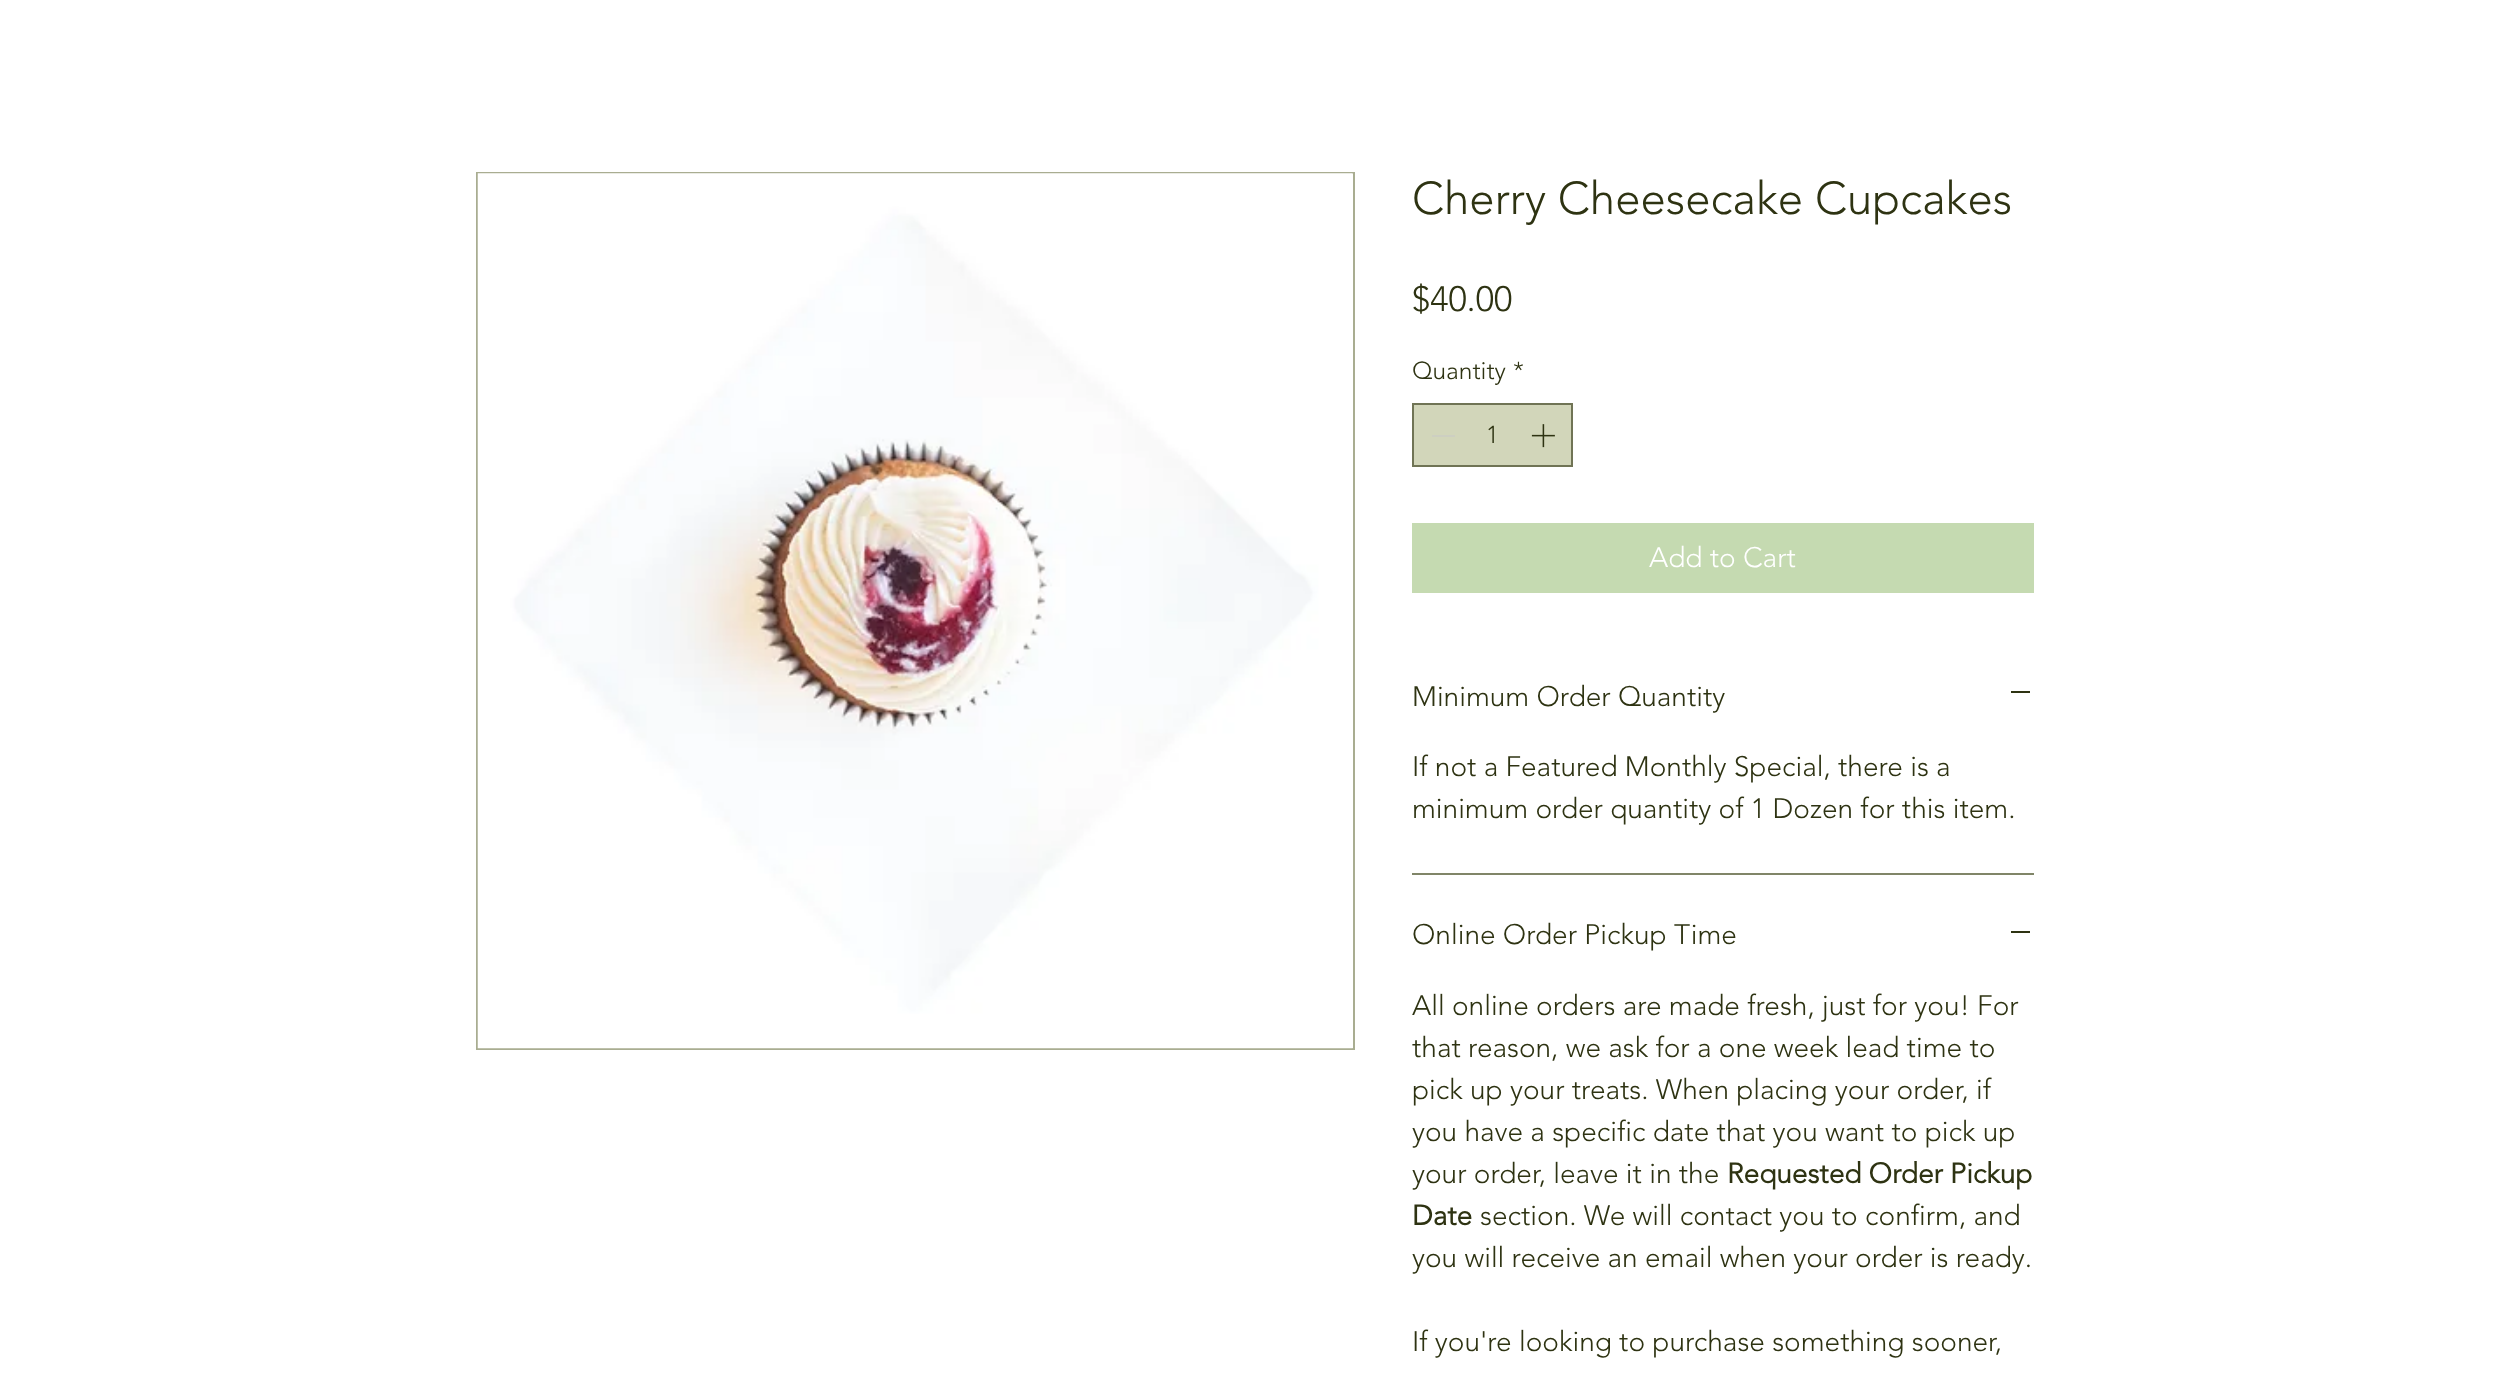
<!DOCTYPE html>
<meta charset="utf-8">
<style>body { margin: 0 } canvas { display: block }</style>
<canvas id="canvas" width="2506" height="1388"></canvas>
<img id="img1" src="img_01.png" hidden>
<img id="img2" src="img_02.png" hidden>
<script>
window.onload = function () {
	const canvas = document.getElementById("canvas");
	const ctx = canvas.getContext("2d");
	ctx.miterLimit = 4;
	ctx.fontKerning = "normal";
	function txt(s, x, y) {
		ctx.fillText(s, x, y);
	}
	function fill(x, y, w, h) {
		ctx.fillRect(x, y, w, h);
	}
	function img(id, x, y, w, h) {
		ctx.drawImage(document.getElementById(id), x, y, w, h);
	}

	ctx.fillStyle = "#FFFFFF";
	fill(0, 0, 2506, 1388);
	ctx.strokeStyle = "#A9AD91";
	ctx.lineWidth = 2;
	ctx.strokeRect(477, 173, 877, 876);
	img("img1", 477, 173, 876, 876);
	ctx.fillStyle = "#D2D6BA";
	ctx.beginPath();
	ctx.rect(1413, 404, 159, 62);
	ctx.fill();
	ctx.strokeStyle = "#707455";
	ctx.stroke();
	ctx.fillStyle = "#CDCFC1";
	fill(1432, 435, 23, 2);
	img("img2", 1531, 424, 24, 24);
	ctx.fillStyle = "#C5DAB1";
	fill(1412, 523, 622, 70);
	ctx.fillStyle = "#808568";
	fill(1412, 873, 622, 2);
	ctx.fillStyle = "#2E3312";
	fill(2011, 691, 19, 2);
	fill(2011, 931, 19, 2);
	ctx.font = "300 45.5px 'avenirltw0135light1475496'";
	txt("Cherry Cheesecake Cupcakes", 1412, 214);
	ctx.font = "300 35px 'avenirltw0135light1475496'";
	txt("$40.00", 1412, 311);
	ctx.font = "300 24.5px 'avenirltw0135light1475496'";
	txt("Quantity", 1412, 379);
	txt("*", 1513, 379);
	txt("1", 1486, 443);
	ctx.font = "300 28px 'avenirltw0135light1475496'";
	ctx.fillStyle = "#FFFFFF";
	txt("Add to Cart", 1649, 567);
	ctx.fillStyle = "#2E3312";
	txt("Minimum Order Quantity", 1412, 706);
	txt("If not a Featured Monthly Special, there is a", 1412, 776);
	txt("minimum order quantity of 1 Dozen for this item.", 1412, 818);
	txt("Online Order Pickup Time", 1412, 944);
	txt("All online orders are made fresh, just for you! For", 1412, 1015);
	txt("that reason, we ask for a one week lead time to", 1412, 1057);
	txt("pick up your treats. When placing your order, if", 1412, 1099);
	txt("you have a specific date that you want to pick up", 1412, 1141);
	txt("your order, leave it in the", 1412, 1183);
	ctx.font = "bold 28px 'avenirltw0135light1475496'";
	txt("Requested Order Pickup", 1727, 1183);
	txt("Date", 1412, 1225);
	ctx.font = "300 28px 'avenirltw0135light1475496'";
	txt("section. We will contact you to confirm, and", 1480, 1225);
	txt("you will receive an email when your order is ready.", 1412, 1267);
	txt("If you're looking to purchase something sooner,", 1412, 1351);
};
</script>
